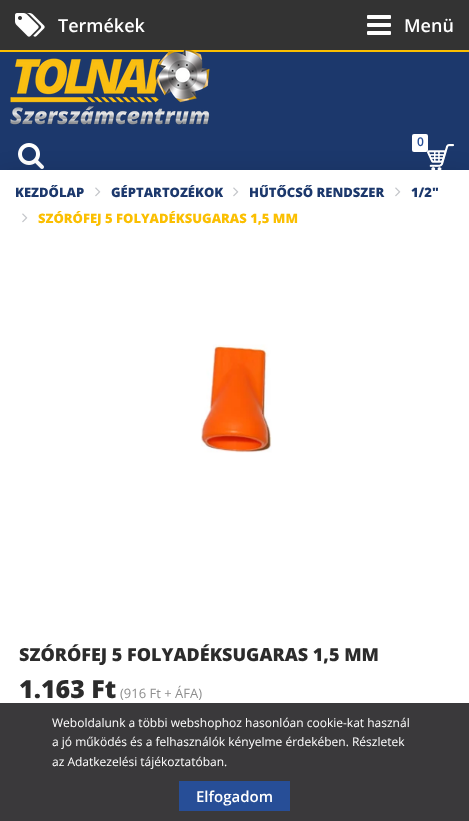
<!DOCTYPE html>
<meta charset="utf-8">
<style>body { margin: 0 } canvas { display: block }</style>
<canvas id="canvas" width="469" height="821"></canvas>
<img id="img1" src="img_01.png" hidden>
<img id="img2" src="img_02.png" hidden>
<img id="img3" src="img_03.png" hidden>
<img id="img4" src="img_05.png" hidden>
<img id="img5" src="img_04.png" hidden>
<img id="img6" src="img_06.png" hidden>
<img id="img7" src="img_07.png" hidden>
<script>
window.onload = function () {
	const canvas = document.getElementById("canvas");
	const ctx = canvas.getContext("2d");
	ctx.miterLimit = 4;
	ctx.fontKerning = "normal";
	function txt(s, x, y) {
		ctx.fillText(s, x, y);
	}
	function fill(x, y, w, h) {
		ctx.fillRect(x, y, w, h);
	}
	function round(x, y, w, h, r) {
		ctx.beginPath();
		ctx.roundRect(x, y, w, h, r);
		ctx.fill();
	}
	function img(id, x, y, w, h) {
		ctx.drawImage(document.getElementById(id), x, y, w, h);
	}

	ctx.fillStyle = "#1C386C";
	fill(0, 0, 469, 821);
	ctx.fillStyle = "#333333";
	fill(0, 0, 469, 50);
	img("img1", 15, 13, 30, 24);
	img("img2", 367, 15, 24, 20);
	ctx.fillStyle = "#FBBF01";
	fill(0, 50, 469, 2);
	img("img3", 10, 50, 200, 75);
	img("img4", 18, 143, 26, 26);
	ctx.fillStyle = "rgba(0, 0, 0, 0.1)";
	ctx.filter = "blur(10px)";
	ctx.beginPath();
	ctx.rect(0, 170, 469, 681);
	ctx.fill();
	ctx.filter = "none";
	ctx.fillStyle = "#FFFFFF";
	round(412, 134, 16, 18, 2);
	img("img5", 427, 144, 27, 26);
	fill(0, 170, 469, 533);
	img("img6", 95, 187, 6, 10);
	img("img6", 233, 187, 6, 10);
	img("img6", 395, 187, 6, 10);
	img("img6", 22, 213, 6, 10);
	img("img7", 201, 344, 71, 109);
	ctx.fillStyle = "#3A393B";
	fill(0, 703, 469, 118);
	ctx.fillStyle = "#274E97";
	fill(179, 781, 111, 30);
	ctx.font = "600 18px Open Sans";
	ctx.fillStyle = "#FFFFFF";
	txt("Termékek", 58, 32);
	txt("Menü", 404, 32);
	ctx.font = "600 12px Open Sans";
	ctx.fillStyle = "#274E97";
	txt("0", 417, 146);
	ctx.font = "800 13px Open Sans";
	ctx.fillStyle = "#1C386C";
	txt("KEZDŐLAP", 15, 197);
	txt("GÉPTARTOZÉKOK", 111, 197);
	txt("HŰTŐCSŐ RENDSZER", 249, 197);
	txt("1/2\"", 411, 197);
	ctx.fillStyle = "#FBBF01";
	txt("SZÓRÓFEJ 5 FOLYADÉKSUGARAS 1,5 MM", 38, 223);
	ctx.font = "800 18px Open Sans";
	ctx.fillStyle = "#2C2C2C";
	txt("SZÓRÓFEJ 5 FOLYADÉKSUGARAS 1,5 MM", 19, 661);
	ctx.font = "800 25px Open Sans";
	txt("1.163 Ft", 19, 698);
	ctx.font = "13px Open Sans";
	ctx.fillStyle = "#8E8E8E";
	txt("(916 Ft + ÁFA)", 120, 698);
	ctx.font = "12px Open Sans";
	ctx.fillStyle = "#FFFFFF";
	txt("Weboldalunk a többi webshophoz hasonlóan cookie-kat használ", 52, 727);
	txt("a jó működés és a felhasználók kényelme érdekében. Részletek", 52, 746);
	txt("az Adatkezelési tájékoztatóban.", 52, 766);
	ctx.font = "600 15px Open Sans";
	txt("Elfogadom", 196, 802);
};
</script>
